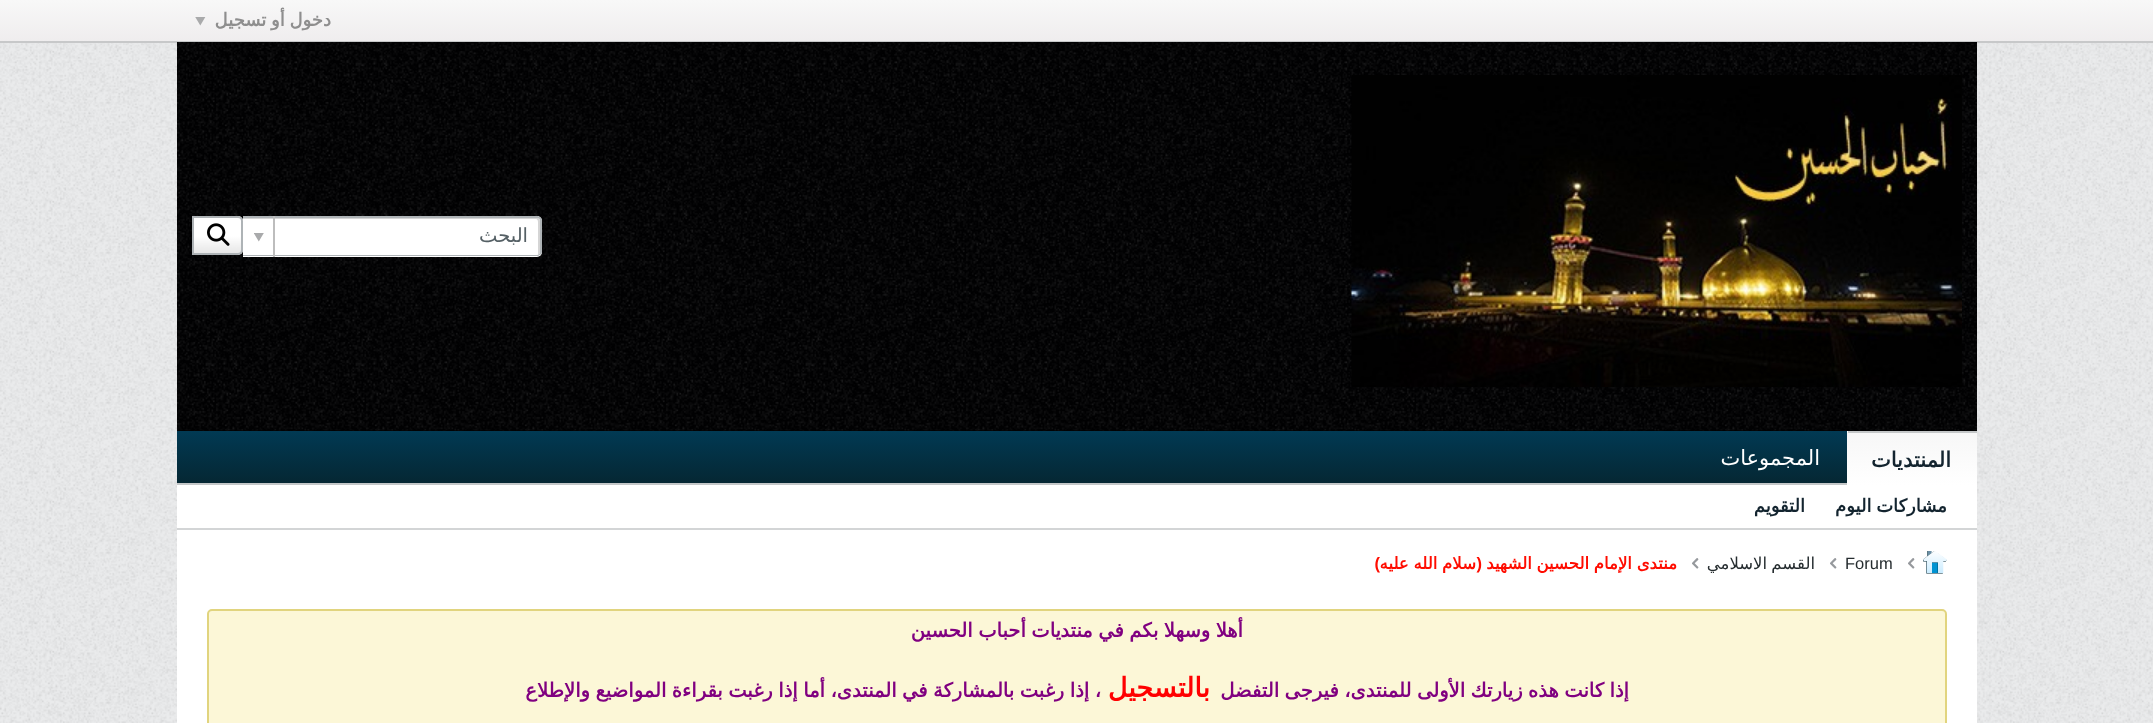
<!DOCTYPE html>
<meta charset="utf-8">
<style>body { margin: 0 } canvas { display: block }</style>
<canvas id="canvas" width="2153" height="723"></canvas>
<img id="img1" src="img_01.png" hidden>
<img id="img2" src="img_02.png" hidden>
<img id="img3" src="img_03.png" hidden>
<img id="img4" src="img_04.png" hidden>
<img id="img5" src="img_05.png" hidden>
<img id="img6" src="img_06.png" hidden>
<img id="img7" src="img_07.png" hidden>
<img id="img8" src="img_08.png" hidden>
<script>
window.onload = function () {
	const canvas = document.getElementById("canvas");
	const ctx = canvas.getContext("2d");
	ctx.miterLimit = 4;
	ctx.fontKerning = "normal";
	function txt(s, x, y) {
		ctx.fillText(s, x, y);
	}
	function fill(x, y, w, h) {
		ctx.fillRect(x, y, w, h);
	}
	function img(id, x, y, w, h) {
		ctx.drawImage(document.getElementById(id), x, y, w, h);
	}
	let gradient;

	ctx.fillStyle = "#EAEBEC";
	fill(0, 0, 2153, 723);
	img("img1", 0, 43, 2153, 680);
	gradient = ctx.createLinearGradient(1077, 0, 1077, 41);
	gradient.addColorStop(0, "#F8F8F8");
	gradient.addColorStop(1, "#EFEDEE");
	ctx.fillStyle = gradient;
	fill(0, 0, 2153, 41);
	ctx.fillStyle = "#C7C8C9";
	fill(0, 41, 2153, 2);
	img("img2", 195, 17, 11, 9);
	ctx.fillStyle = "#010102";
	fill(177, 42, 1800, 389);
	img("img3", 177, 42, 1800, 389);
	img("img4", 1351, 75, 611, 312);
	ctx.fillStyle = "#FFFFFF";
	ctx.beginPath();
	ctx.roundRect(243, 216, 299, 41, [0, 5, 5, 0]);
	ctx.fill();
	ctx.fillStyle = "#D5D5D5";
	ctx.beginPath();
	ctx.moveTo(243, 218);
	ctx.lineTo(243, 219);
	ctx.lineTo(536, 219);
	ctx.bezierCurveTo(537, 219, 538, 220, 538, 222);
	ctx.lineTo(538, 255);
	ctx.bezierCurveTo(539, 255, 540, 253, 540, 252);
	ctx.lineTo(540, 221);
	ctx.bezierCurveTo(540, 219, 539, 218, 537, 218);
	ctx.closePath();
	ctx.fill();
	ctx.fillStyle = "#AEB3B6";
	ctx.beginPath();
	ctx.moveTo(243, 216);
	ctx.lineTo(537, 216);
	ctx.bezierCurveTo(539, 216, 542, 218, 542, 220);
	ctx.lineTo(542, 252);
	ctx.bezierCurveTo(542, 254, 539, 256, 537, 256);
	ctx.lineTo(243, 256);
	ctx.closePath();
	ctx.moveTo(243, 218);
	ctx.lineTo(537, 218);
	ctx.bezierCurveTo(539, 218, 540, 219, 540, 220);
	ctx.lineTo(540, 252);
	ctx.bezierCurveTo(540, 254, 539, 255, 537, 255);
	ctx.lineTo(243, 255);
	ctx.closePath();
	ctx.fill("evenodd");
	ctx.fillStyle = "#BDBDBD";
	fill(273, 216, 2, 41);
	img("img5", 254, 233, 10, 9);
	ctx.fillStyle = "#FFFFFF";
	ctx.beginPath();
	ctx.roundRect(192, 216, 51, 39, [0, 5, 5, 0]);
	ctx.fill();
	ctx.save();
	ctx.beginPath();
	ctx.roundRect(192, 216, 51, 39, [0, 5, 5, 0]);
	ctx.clip();
	gradient = ctx.createLinearGradient(218, 254, 218, 218);
	gradient.addColorStop(0, "rgba(0, 0, 0, 0.1)");
	gradient.addColorStop(0.5, "rgba(0, 0, 0, 0)");
	gradient.addColorStop(0.5, "rgba(255, 255, 255, 0)");
	gradient.addColorStop(1, "rgba(255, 255, 255, 0.7)");
	ctx.fillStyle = gradient;
	fill(194, 218, 49, 36);
	ctx.restore();
	ctx.beginPath();
	ctx.roundRect(193, 217, 49, 37, [0, 4, 4, 0]);
	ctx.strokeStyle = "#AEB3B6";
	ctx.lineWidth = 2;
	ctx.stroke();
	img("img6", 207, 223, 23, 23);
	gradient = ctx.createLinearGradient(1077, 430, 1077, 483);
	gradient.addColorStop(0, "#013A54");
	gradient.addColorStop(1, "#052733");
	ctx.fillStyle = gradient;
	fill(177, 431, 1671, 52);
	ctx.fillStyle = "#C4C7C8";
	fill(177, 483, 1670, 2);
	gradient = ctx.createLinearGradient(1912, 380, 1912, 432);
	gradient.addColorStop(0, "#F7F7F7");
	gradient.addColorStop(1, "#FFFFFF");
	ctx.fillStyle = gradient;
	fill(1847, 431, 1, 1);
	gradient = ctx.createLinearGradient(1912, 432, 1912, 485);
	gradient.addColorStop(0, "#F7F7F7");
	gradient.addColorStop(1, "#FFFFFF");
	ctx.fillStyle = gradient;
	fill(1847, 432, 130, 53);
	ctx.fillStyle = "#C4C7C8";
	fill(1848, 431, 129, 2);
	ctx.fillStyle = "#FFFFFF";
	fill(177, 485, 1800, 43);
	ctx.fillStyle = "#D3D5D6";
	fill(177, 528, 1800, 2);
	ctx.fillStyle = "#FFFFFF";
	fill(177, 530, 1800, 193);
	img("img7", 1923, 551, 24, 23);
	img("img8", 1908, 558, 7, 11);
	img("img8", 1830, 558, 7, 11);
	img("img8", 1692, 558, 7, 11);
	ctx.fillStyle = "#FCF7D7";
	ctx.beginPath();
	ctx.roundRect(208, 610, 1738, 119, 4);
	ctx.fill();
	ctx.strokeStyle = "#E1D47E";
	ctx.stroke();
	ctx.wordSpacing = "-1px";
	ctx.direction = "rtl";
	ctx.font = "bold 18px DejaVu Sans";
	ctx.fillStyle = "#8E8E8E";
	txt("دخول أو تسجيل", 331, 26);
	ctx.wordSpacing = "0px";
	ctx.font = "19.5px DejaVu Sans";
	ctx.fillStyle = "#556065";
	txt("البحث", 528, 242);
	ctx.font = "bold 21px DejaVu Sans";
	ctx.fillStyle = "#13242F";
	txt("المنتديات", 1951, 467);
	ctx.font = "21px DejaVu Sans";
	ctx.fillStyle = "#FFFFFF";
	txt("المجموعات", 1820, 465);
	ctx.wordSpacing = "-1px";
	ctx.font = "bold 18px DejaVu Sans";
	ctx.fillStyle = "#13242F";
	txt("مشاركات اليوم", 1947, 512);
	ctx.wordSpacing = "0px";
	txt("التقويم", 1805, 512);
	ctx.direction = "ltr";
	ctx.font = "16.5px Liberation Sans";
	ctx.fillStyle = "#252C2F";
	txt("Forum", 1845, 569);
	ctx.wordSpacing = "-1px";
	ctx.direction = "rtl";
	ctx.font = "16.5px DejaVu Sans";
	txt("القسم الاسلامي", 1815, 569);
	ctx.wordSpacing = "-0.5px";
	ctx.font = "bold 16.5px DejaVu Sans";
	ctx.fillStyle = "#FF0C00";
	txt("منتدى الإمام الحسين الشهيد", 1677, 569);
	ctx.wordSpacing = "0px";
	ctx.font = "bold 16.5px Liberation Sans";
	txt("(", 1482, 569);
	ctx.wordSpacing = "-0.5px";
	ctx.font = "bold 16.5px DejaVu Sans";
	txt("سلام الله عليه", 1476, 569);
	ctx.wordSpacing = "0px";
	ctx.font = "bold 16.5px Liberation Sans";
	txt(")", 1380, 569);
	ctx.wordSpacing = "-0.75px";
	ctx.font = "bold 19.5px DejaVu Sans";
	ctx.fillStyle = "#800080";
	txt("أهلا وسهلا بكم في منتد", 1243, 637);
	txt("يات أحباب الحسين", 1061, 637);
	txt("إذا كانت هذه زيارتك الأولى للمنتدى، فيرجى التفضل", 1629, 697);
	ctx.wordSpacing = "0px";
	ctx.font = "bold 27px DejaVu Sans";
	ctx.fillStyle = "#FF0000";
	txt("بالتسجيل", 1210, 697);
	ctx.wordSpacing = "-0.75px";
	ctx.font = "bold 19.5px DejaVu Sans";
	ctx.fillStyle = "#800080";
	txt("، إذا رغبت بالمشاركة في المنتدى، أما إذا رغبت بقراءة المواضيع والإطلاع", 1101, 697);
};
</script>
